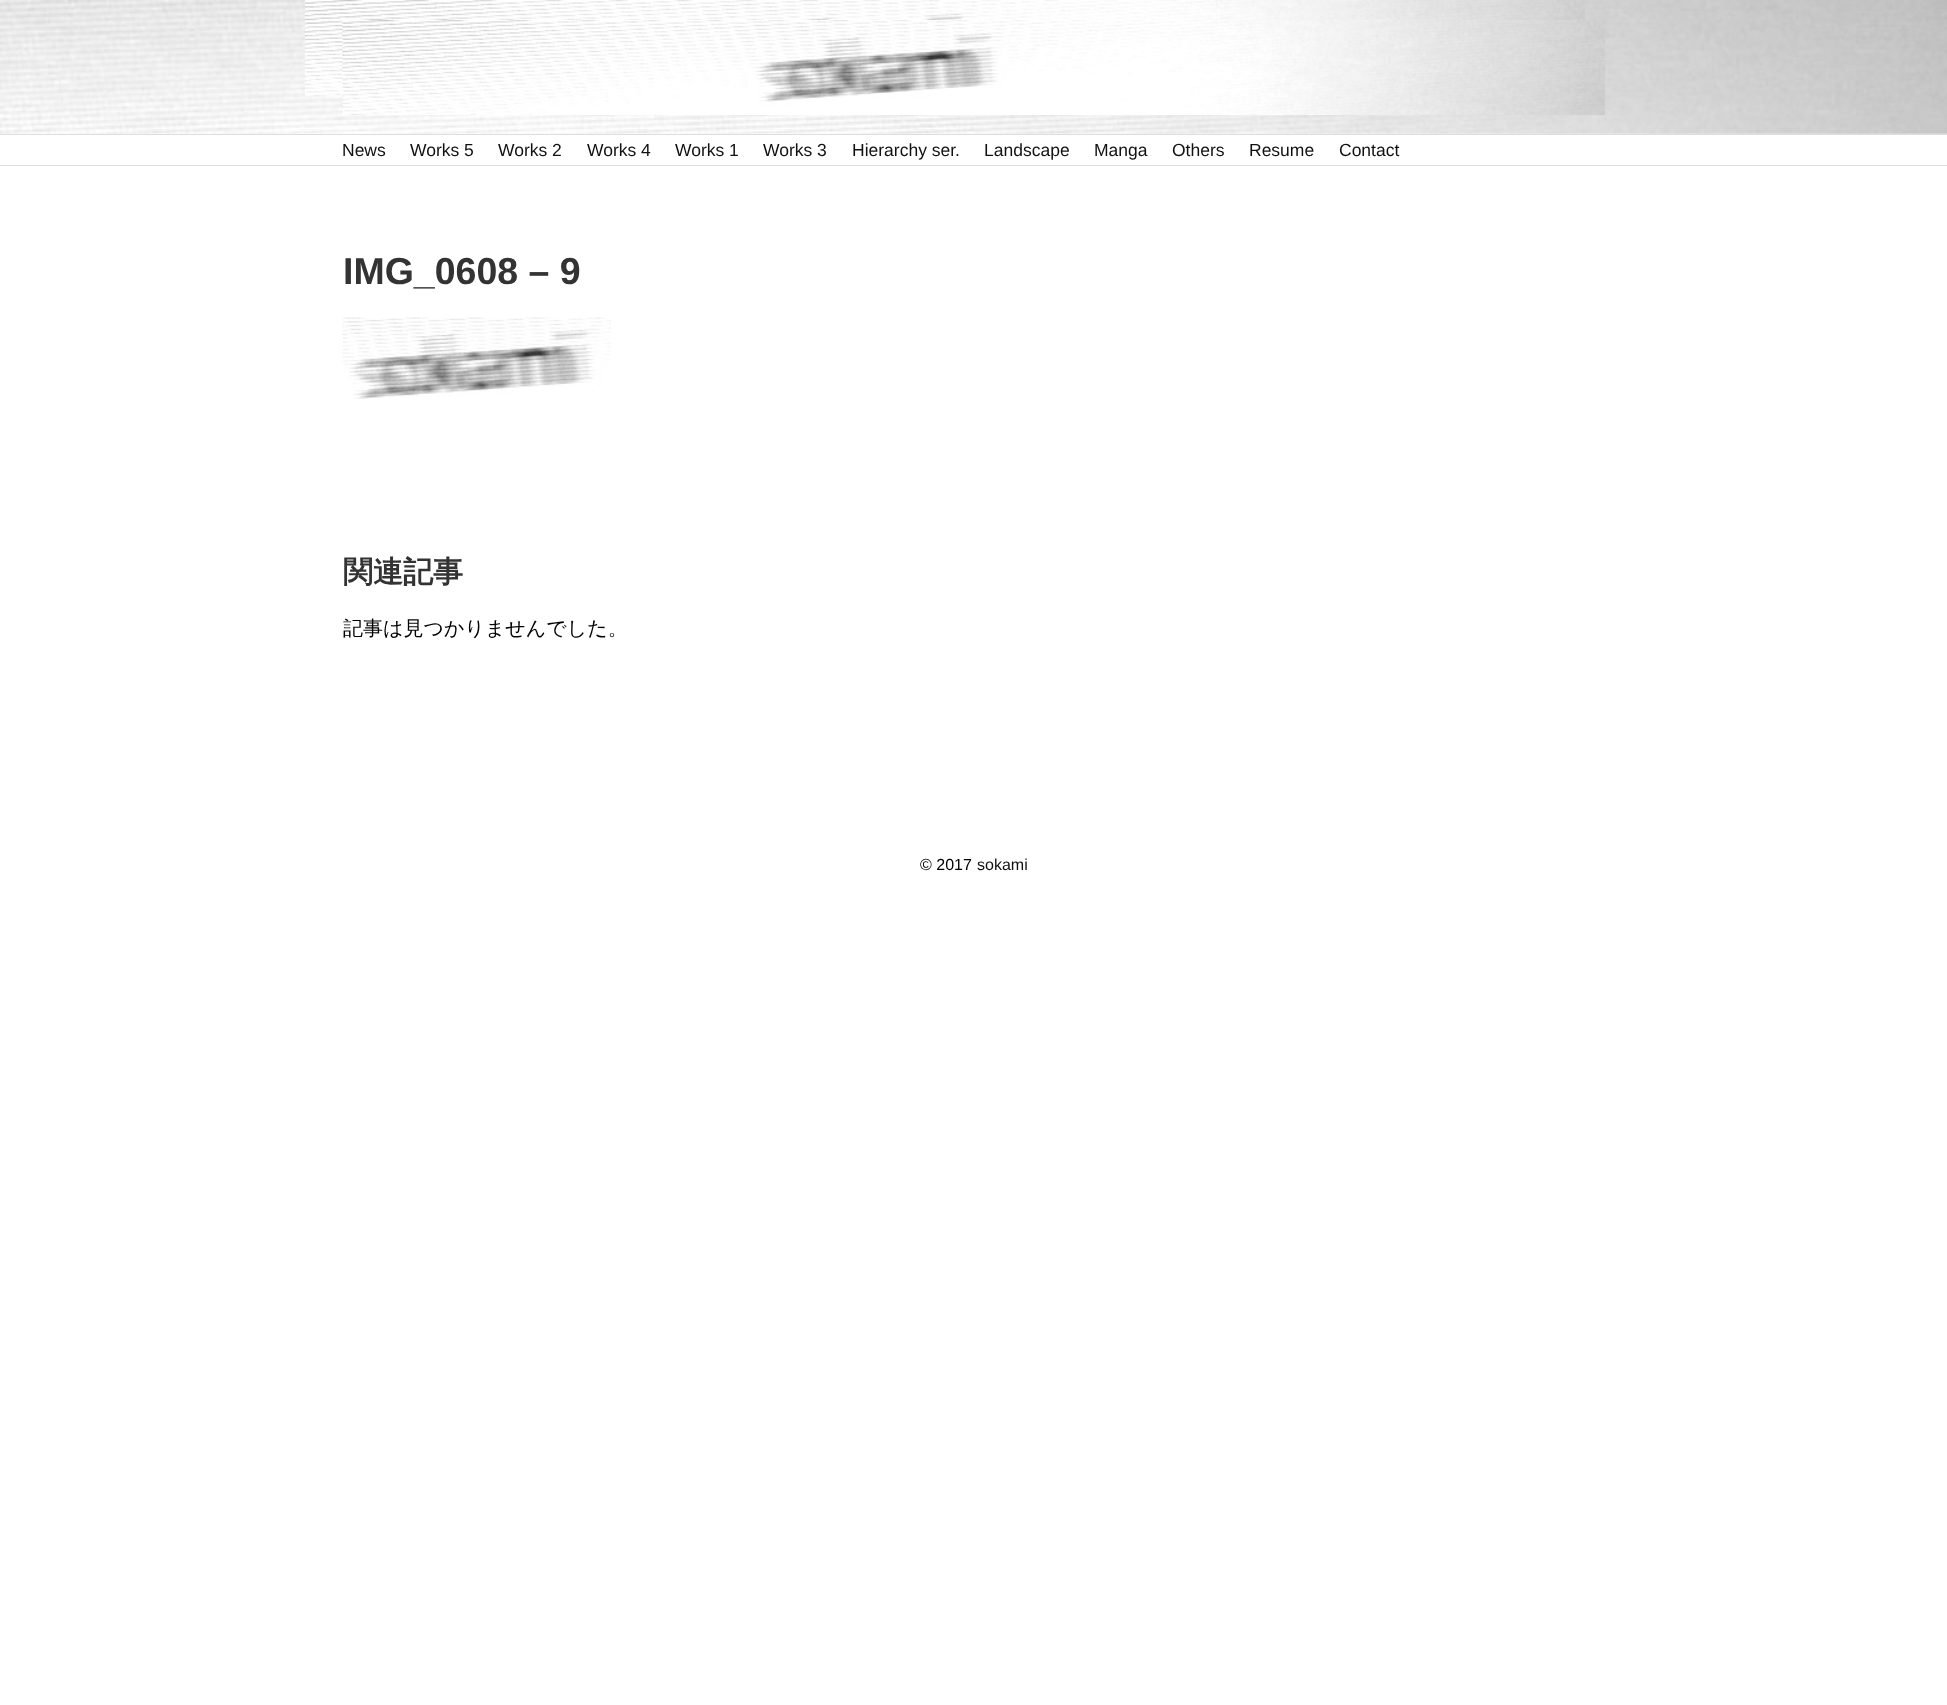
<!DOCTYPE html>
<meta charset="utf-8">
<style>body { margin: 0 } canvas { display: block }</style>
<canvas id="canvas" width="1947" height="1705"></canvas>
<img id="img1" src="img_01.png" hidden>
<img id="img2" src="img_02.png" hidden>
<img id="img3" src="img_03.png" hidden>
<img id="img4" src="img_04.png" hidden>
<script>
window.onload = function () {
	const canvas = document.getElementById("canvas");
	const ctx = canvas.getContext("2d");
	ctx.miterLimit = 4;
	ctx.fontKerning = "normal";
	function txt(s, x, y) {
		ctx.fillText(s, x, y);
	}
	function fill(x, y, w, h) {
		ctx.fillRect(x, y, w, h);
	}
	function img(id, x, y, w, h) {
		ctx.drawImage(document.getElementById(id), x, y, w, h);
	}

	ctx.fillStyle = "#FFFFFF";
	fill(0, 0, 1947, 1705);
	img("img1", 0, 0, 1947, 134);
	img("img2", 305, 0, 1280, 97);
	img("img3", 342, 20, 1263, 95);
	ctx.fillStyle = "#DDDDDD";
	fill(0, 134, 1947, 1);
	fill(0, 165, 1947, 1);
	img("img4", 342, 317, 269, 82);
	ctx.font = "17.5px Liberation Sans";
	ctx.fillStyle = "#111111";
	txt("News", 342, 156);
	txt("Works 5", 410, 156);
	txt("Works 2", 498, 156);
	txt("Works 4", 587, 156);
	txt("Works 1", 675, 156);
	txt("Works 3", 763, 156);
	txt("Hierarchy ser.", 852, 156);
	txt("Landscape", 984, 156);
	txt("Manga", 1094, 156);
	txt("Others", 1172, 156);
	txt("Resume", 1249, 156);
	txt("Contact", 1339, 156);
	ctx.font = "bold 37.5px Liberation Sans";
	ctx.fillStyle = "#333333";
	txt("IMG_0608 – 9", 343, 284);
	ctx.font = "bold 30px WenQuanYi Zen Hei";
	txt("関連記事", 343, 582);
	ctx.font = "500 20px WenQuanYi Zen Hei";
	ctx.fillStyle = "#000000";
	txt("記事は見つかりませんでした。", 343, 635);
	ctx.font = "16px Liberation Sans";
	txt("© 2017", 920, 870);
	ctx.fillStyle = "#111111";
	txt("sokami", 977, 870);
};
</script>
